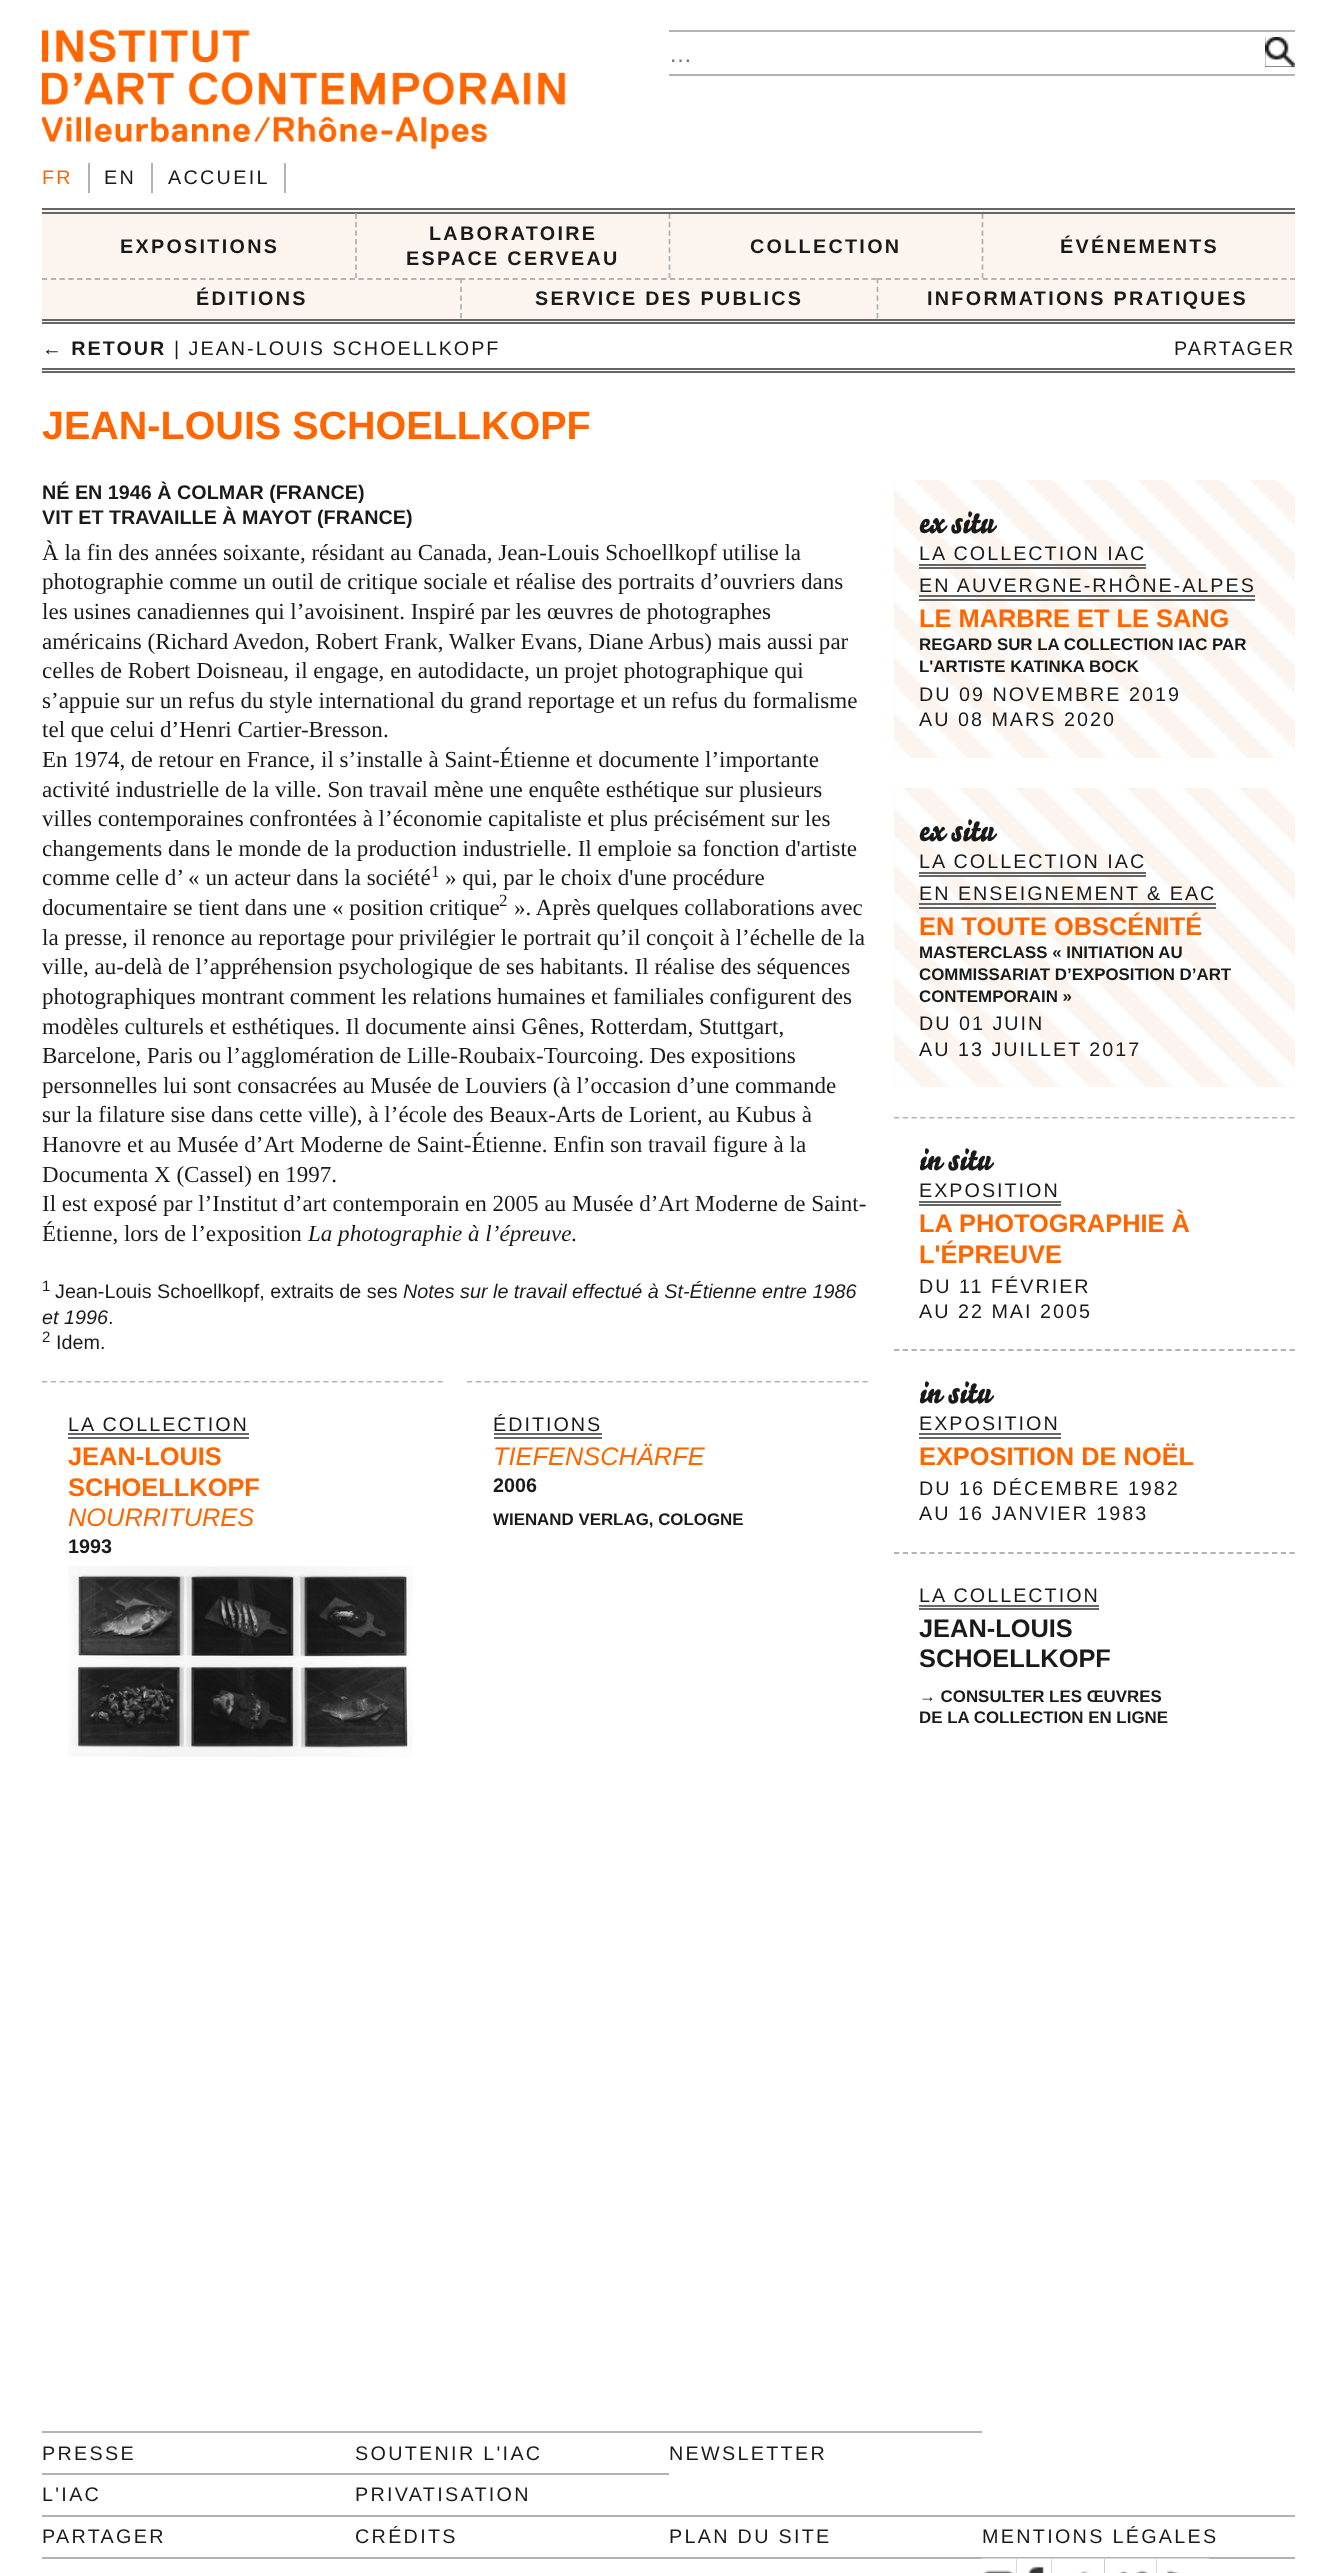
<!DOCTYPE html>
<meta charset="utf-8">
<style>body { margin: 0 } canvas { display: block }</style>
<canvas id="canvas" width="1337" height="2573"></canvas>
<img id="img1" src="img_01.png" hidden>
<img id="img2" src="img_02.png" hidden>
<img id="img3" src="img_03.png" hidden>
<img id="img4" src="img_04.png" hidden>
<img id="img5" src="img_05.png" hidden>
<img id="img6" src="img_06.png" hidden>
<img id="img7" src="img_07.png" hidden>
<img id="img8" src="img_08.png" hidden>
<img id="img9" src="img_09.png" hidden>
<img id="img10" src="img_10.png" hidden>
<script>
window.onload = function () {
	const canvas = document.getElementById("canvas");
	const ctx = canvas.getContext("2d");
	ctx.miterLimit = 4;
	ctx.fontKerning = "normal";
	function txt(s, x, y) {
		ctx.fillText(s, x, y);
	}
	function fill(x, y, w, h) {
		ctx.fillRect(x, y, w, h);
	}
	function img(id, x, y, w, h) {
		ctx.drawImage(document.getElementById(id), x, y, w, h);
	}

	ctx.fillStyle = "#FFFFFF";
	fill(0, 0, 1337, 2573);
	img("img1", 42, 29, 524, 120);
	ctx.fillStyle = "#B3B3B3";
	fill(669, 30, 626, 2);
	fill(669, 74, 626, 2);
	ctx.fillStyle = "#1A1A1A";
	fill(1265, 37, 30, 30);
	img("img2", 1265, 37, 30, 30);
	ctx.fillStyle = "#B3B3B3";
	fill(284, 163, 2, 30);
	fill(88, 163, 2, 30);
	fill(151, 163, 2, 30);
	ctx.fillStyle = "#FBF4EF";
	fill(42, 210, 1253, 112);
	ctx.fillStyle = "#666666";
	fill(42, 208, 1253, 2);
	fill(42, 212, 1253, 2);
	fill(42, 319, 1253, 2);
	fill(42, 322, 1253, 2);
	ctx.beginPath();
	ctx.moveTo(356, 213.5);
	ctx.lineTo(356, 278);
	ctx.strokeStyle = "#B3B3B3";
	ctx.lineWidth = 1.8;
	ctx.setLineDash([5.25, 3.26]);
	ctx.stroke();
	ctx.save();
	ctx.beginPath();
	ctx.rect(42, 214, 1253, 105);
	ctx.clip();
	ctx.beginPath();
	ctx.moveTo(669.5, 213.5);
	ctx.lineTo(669.5, 278);
	ctx.stroke();
	ctx.beginPath();
	ctx.moveTo(982.5, 213.5);
	ctx.lineTo(982.5, 278);
	ctx.stroke();
	ctx.restore();
	ctx.beginPath();
	ctx.moveTo(42, 279);
	ctx.lineTo(460, 279);
	ctx.setLineDash([5.25, 3.54]);
	ctx.stroke();
	ctx.beginPath();
	ctx.moveTo(460, 279);
	ctx.lineTo(877, 279);
	ctx.setLineDash([5.25, 3.5]);
	ctx.stroke();
	ctx.beginPath();
	ctx.moveTo(461, 278);
	ctx.lineTo(461, 318.5);
	ctx.stroke();
	ctx.beginPath();
	ctx.moveTo(877, 279);
	ctx.lineTo(1295, 279);
	ctx.setLineDash([5.25, 3.54]);
	ctx.stroke();
	ctx.beginPath();
	ctx.moveTo(877.5, 278);
	ctx.lineTo(877.5, 318.5);
	ctx.setLineDash([5.25, 3.5]);
	ctx.stroke();
	fill(42, 368, 1253, 2);
	fill(42, 371, 1253, 2);
	ctx.fillStyle = "#FBF4EF";
	fill(894, 480, 401, 278);
	img("img3", 894, 480, 401, 278);
	ctx.fillStyle = "#666666";
	fill(919, 564, 227, 2);
	fill(919, 567, 227, 2);
	fill(919, 595, 336, 2);
	fill(919, 599, 336, 2);
	ctx.fillStyle = "#FBF4EF";
	fill(894, 788, 401, 299);
	img("img4", 894, 788, 401, 299);
	ctx.fillStyle = "#666666";
	fill(919, 872, 227, 2);
	fill(919, 875, 227, 2);
	fill(919, 903, 297, 2);
	fill(919, 907, 297, 2);
	ctx.save();
	ctx.beginPath();
	ctx.rect(894, 1117, 401, 232);
	ctx.clip();
	ctx.beginPath();
	ctx.moveTo(894, 1117.5);
	ctx.lineTo(1295, 1117.5);
	ctx.setLineDash([5.25, 3.54]);
	ctx.stroke();
	ctx.restore();
	fill(919, 1201, 142, 2);
	fill(919, 1204, 142, 2);
	ctx.save();
	ctx.beginPath();
	ctx.rect(42, 1381, 401, 402);
	ctx.clip();
	ctx.beginPath();
	ctx.moveTo(42, 1381.5);
	ctx.lineTo(443, 1381.5);
	ctx.setLineDash([5.25, 3.54]);
	ctx.stroke();
	ctx.restore();
	fill(68, 1433, 181, 2);
	fill(68, 1437, 181, 2);
	img("img5", 68, 1566, 345, 191);
	ctx.save();
	ctx.beginPath();
	ctx.rect(467, 1381, 401, 184);
	ctx.clip();
	ctx.beginPath();
	ctx.moveTo(467, 1381.5);
	ctx.lineTo(868, 1381.5);
	ctx.setLineDash([5.25, 3.54]);
	ctx.stroke();
	ctx.restore();
	fill(494, 1433, 108, 2);
	fill(494, 1437, 108, 2);
	ctx.beginPath();
	ctx.moveTo(894, 1350);
	ctx.lineTo(1295, 1350);
	ctx.setLineDash([5.25, 3.54]);
	ctx.stroke();
	fill(919, 1433, 142, 2);
	fill(919, 1437, 142, 2);
	ctx.beginPath();
	ctx.moveTo(894, 1553);
	ctx.lineTo(1295, 1553);
	ctx.stroke();
	fill(919, 1605, 180, 2);
	fill(919, 1608, 180, 2);
	ctx.fillStyle = "#B3B3B3";
	fill(42, 2431, 940, 2);
	fill(42, 2473, 627, 2);
	fill(42, 2515, 1253, 2);
	fill(42, 2557, 1253, 2);
	ctx.fillStyle = "#333333";
	fill(983, 2559, 34, 14);
	img("img6", 981, 2558, 36, 15);
	fill(1028, 2559, 24, 14);
	img("img7", 1016, 2558, 36, 15);
	fill(1079, 2570, 10, 3);
	img("img8", 1051, 2558, 54, 15);
	fill(1104, 2559, 53, 14);
	img("img9", 1104, 2558, 53, 15);
	fill(1166, 2570, 14, 3);
	img("img10", 1156, 2558, 54, 15);
	ctx.font = "23.05px Liberation Sans";
	ctx.fillStyle = "#757575";
	txt("…", 669, 62);
	ctx.letterSpacing = "2.3px";
	ctx.font = "19.75px Liberation Sans";
	ctx.fillStyle = "#FF6600";
	txt("FR", 42, 184);
	ctx.fillStyle = "#1A1A1A";
	txt("EN", 104, 184);
	txt("ACCUEIL", 168, 184);
	ctx.font = "bold 19.75px Liberation Sans";
	txt("EXPOSITIONS", 120, 253);
	txt("LABORATOIRE", 429, 240);
	txt("ESPACE CERVEAU", 406, 265);
	txt("COLLECTION", 750, 253);
	txt("ÉVÉNEMENTS", 1060, 253);
	txt("ÉDITIONS", 196, 305);
	txt("SERVICE DES PUBLICS", 535, 305);
	txt("INFORMATIONS PRATIQUES", 927, 305);
	ctx.letterSpacing = "2px";
	txt("← RETOUR", 42, 355);
	ctx.font = "19.75px Liberation Sans";
	txt("| JEAN-LOUIS SCHOELLKOPF", 174, 355);
	txt("PARTAGER", 1174, 355);
	ctx.letterSpacing = "0px";
	ctx.font = "bold 39.5px Liberation Sans";
	ctx.fillStyle = "#FF6600";
	txt("JEAN-LOUIS SCHOELLKOPF", 42, 439);
	ctx.font = "bold 19.75px Liberation Sans";
	ctx.fillStyle = "#1A1A1A";
	txt("NÉ EN 1946 À COLMAR (FRANCE)", 42, 499);
	txt("VIT ET TRAVAILLE À MAYOT (FRANCE)", 42, 524);
	ctx.font = "23.05px Liberation Serif";
	txt("À la fin des années soixante, résidant au Canada, Jean-Louis Schoellkopf utilise la", 42, 560);
	txt("photographie comme un outil de critique sociale et réalise des portraits d’ouvriers dans", 42, 589);
	txt("les usines canadiennes qui l’avoisinent. Inspiré par les œuvres de photographes", 42, 619);
	txt("américains (Richard Avedon, Robert Frank, Walker Evans, Diane Arbus) mais aussi par", 42, 649);
	txt("celles de Robert Doisneau, il engage, en autodidacte, un projet photographique qui", 42, 678);
	txt("s’appuie sur un refus du style international du grand reportage et un refus du formalisme", 42, 708);
	ctx.wordSpacing = "-0.1px";
	txt("tel que celui d’Henri Cartier-Bresson.", 42, 737);
	ctx.wordSpacing = "0px";
	txt("En 1974, de retour en France, il s’installe à Saint-Étienne et documente l’importante", 42, 767);
	txt("activité industrielle de la ville. Son travail mène une enquête esthétique sur plusieurs", 42, 797);
	txt("villes contemporaines confrontées à l’économie capitaliste et plus précisément sur les", 42, 826);
	txt("changements dans le monde de la production industrielle. Il emploie sa fonction d'artiste", 42, 856);
	txt("comme celle d’ « un acteur dans la société", 42, 885);
	ctx.font = "17px Liberation Serif";
	txt("1", 431, 877);
	ctx.font = "23.05px Liberation Serif";
	txt("» qui, par le choix d'une procédure", 445, 885);
	txt("documentaire se tient dans une « position critique", 42, 915);
	ctx.font = "17px Liberation Serif";
	txt("2", 499, 906);
	ctx.font = "23.05px Liberation Serif";
	txt("». Après quelques collaborations avec", 514, 915);
	txt("la presse, il renonce au reportage pour privilégier le portrait qu’il conçoit à l’échelle de la", 42, 945);
	txt("ville, au-delà de l’appréhension psychologique de ses habitants. Il réalise des séquences", 42, 974);
	ctx.wordSpacing = "-0.25px";
	txt("photographiques montrant comment les relations humaines et familiales configurent des", 42, 1004);
	ctx.wordSpacing = "-0.1px";
	txt("modèles culturels et esthétiques. Il documente ainsi Gênes, Rotterdam, Stuttgart,", 42, 1034);
	ctx.wordSpacing = "-0.25px";
	txt("Barcelone, Paris ou l’agglomération de Lille-Roubaix-Tourcoing. Des expositions", 42, 1063);
	ctx.wordSpacing = "0px";
	txt("personnelles lui sont consacrées au Musée de Louviers (à l’occasion d’une commande", 42, 1093);
	txt("sur la filature sise dans cette ville), à l’école des Beaux-Arts de Lorient, au Kubus à", 42, 1122);
	txt("Hanovre et au Musée d’Art Moderne de Saint-Étienne. Enfin son travail figure à la", 42, 1152);
	txt("Documenta X (Cassel) en 1997.", 42, 1182);
	txt("Il est exposé par l’Institut d’art contemporain en 2005 au Musée d’Art Moderne de Saint-", 42, 1211);
	txt("Étienne, lors de l’exposition", 42, 1241);
	ctx.font = "italic 23.05px Liberation Serif";
	txt("La photographie à l’épreuve", 308, 1241);
	ctx.font = "23.05px Liberation Serif";
	txt(".", 571, 1241);
	ctx.font = "15px Liberation Sans";
	txt("1", 42, 1291);
	ctx.font = "19.75px Liberation Sans";
	txt("Jean-Louis Schoellkopf, extraits de ses", 55, 1298);
	ctx.font = "italic 19.75px Liberation Sans";
	txt("Notes sur le travail effectué à St-Étienne entre 1986", 403, 1298);
	txt("et 1996", 42, 1324);
	ctx.font = "19.75px Liberation Sans";
	txt(".", 108, 1324);
	ctx.font = "15px Liberation Sans";
	txt("2", 42, 1342);
	ctx.font = "19.75px Liberation Sans";
	txt("Idem.", 56, 1349);
	ctx.font = "31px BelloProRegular";
	txt("ex situ", 919, 533);
	ctx.letterSpacing = "2px";
	ctx.font = "19.75px Liberation Sans";
	txt("LA COLLECTION IAC", 919, 560);
	txt("EN AUVERGNE-RHÔNE-ALPES", 919, 592);
	ctx.letterSpacing = "0px";
	ctx.font = "bold 25.4px Liberation Sans";
	ctx.fillStyle = "#FF6600";
	txt("LE MARBRE ET LE SANG", 919, 627);
	ctx.font = "bold 16.9px Liberation Sans";
	ctx.fillStyle = "#1A1A1A";
	txt("REGARD SUR LA COLLECTION IAC PAR", 919, 650);
	txt("L'ARTISTE KATINKA BOCK", 919, 672);
	ctx.letterSpacing = "2px";
	ctx.font = "19.75px Liberation Sans";
	txt("DU 09 NOVEMBRE 2019", 919, 701);
	txt("AU 08 MARS 2020", 919, 726);
	ctx.letterSpacing = "0px";
	ctx.font = "31px BelloProRegular";
	txt("ex situ", 919, 841);
	ctx.letterSpacing = "2px";
	ctx.font = "19.75px Liberation Sans";
	txt("LA COLLECTION IAC", 919, 868);
	txt("EN ENSEIGNEMENT & EAC", 919, 900);
	ctx.letterSpacing = "0px";
	ctx.font = "bold 25.4px Liberation Sans";
	ctx.fillStyle = "#FF6600";
	txt("EN TOUTE OBSCÉNITÉ", 919, 935);
	ctx.font = "bold 16.9px Liberation Sans";
	ctx.fillStyle = "#1A1A1A";
	txt("MASTERCLASS « INITIATION AU", 919, 958);
	txt("COMMISSARIAT D’EXPOSITION D’ART", 919, 980);
	txt("CONTEMPORAIN »", 919, 1002);
	ctx.letterSpacing = "2px";
	ctx.font = "19.75px Liberation Sans";
	txt("DU 01 JUIN", 919, 1030);
	txt("AU 13 JUILLET 2017", 919, 1056);
	ctx.letterSpacing = "0px";
	ctx.font = "31px BelloProRegular";
	txt("in situ", 919, 1170);
	ctx.letterSpacing = "2px";
	ctx.font = "19.75px Liberation Sans";
	txt("EXPOSITION", 919, 1197);
	ctx.letterSpacing = "0px";
	ctx.font = "bold 25.4px Liberation Sans";
	ctx.fillStyle = "#FF6600";
	txt("LA PHOTOGRAPHIE À", 919, 1232);
	txt("L'ÉPREUVE", 919, 1263);
	ctx.letterSpacing = "2px";
	ctx.font = "19.75px Liberation Sans";
	ctx.fillStyle = "#1A1A1A";
	txt("DU 11 FÉVRIER", 919, 1293);
	txt("AU 22 MAI 2005", 919, 1318);
	txt("LA COLLECTION", 68, 1431);
	ctx.letterSpacing = "0px";
	ctx.font = "bold 25.4px Liberation Sans";
	ctx.fillStyle = "#FF6600";
	txt("JEAN-LOUIS", 68, 1465);
	txt("SCHOELLKOPF", 68, 1496);
	ctx.font = "italic 25.4px Liberation Sans";
	txt("NOURRITURES", 68, 1526);
	ctx.font = "bold 19.75px Liberation Sans";
	ctx.fillStyle = "#1A1A1A";
	txt("1993", 68, 1553);
	ctx.letterSpacing = "2px";
	ctx.font = "19.75px Liberation Sans";
	txt("ÉDITIONS", 493, 1431);
	ctx.letterSpacing = "0px";
	ctx.font = "italic 25.4px Liberation Sans";
	ctx.fillStyle = "#FF6600";
	txt("TIEFENSCHÄRFE", 493, 1465);
	ctx.font = "bold 19.75px Liberation Sans";
	ctx.fillStyle = "#1A1A1A";
	txt("2006", 493, 1492);
	ctx.font = "bold 16.9px Liberation Sans";
	txt("WIENAND VERLAG, COLOGNE", 493, 1525);
	ctx.font = "31px BelloProRegular";
	txt("in situ", 919, 1403);
	ctx.letterSpacing = "2px";
	ctx.font = "19.75px Liberation Sans";
	txt("EXPOSITION", 919, 1430);
	ctx.letterSpacing = "0px";
	ctx.font = "bold 25.4px Liberation Sans";
	ctx.fillStyle = "#FF6600";
	txt("EXPOSITION DE NOËL", 919, 1465);
	ctx.letterSpacing = "2px";
	ctx.font = "19.75px Liberation Sans";
	ctx.fillStyle = "#1A1A1A";
	txt("DU 16 DÉCEMBRE 1982", 919, 1495);
	txt("AU 16 JANVIER 1983", 919, 1520);
	txt("LA COLLECTION", 919, 1602);
	ctx.letterSpacing = "0px";
	ctx.font = "bold 25.4px Liberation Sans";
	txt("JEAN-LOUIS", 919, 1637);
	txt("SCHOELLKOPF", 919, 1667);
	ctx.font = "bold 16.9px Liberation Sans";
	txt("→ CONSULTER LES ŒUVRES", 919, 1702);
	txt("DE LA COLLECTION EN LIGNE", 919, 1723);
	ctx.letterSpacing = "2.3px";
	ctx.font = "19.75px Liberation Sans";
	txt("PRESSE", 42, 2460);
	txt("SOUTENIR L'IAC", 355, 2460);
	txt("NEWSLETTER", 669, 2460);
	txt("L'IAC", 42, 2501);
	txt("PRIVATISATION", 355, 2501);
	txt("PARTAGER", 42, 2543);
	txt("CRÉDITS", 355, 2543);
	txt("PLAN DU SITE", 669, 2543);
	txt("MENTIONS LÉGALES", 982, 2543);
};
</script>
